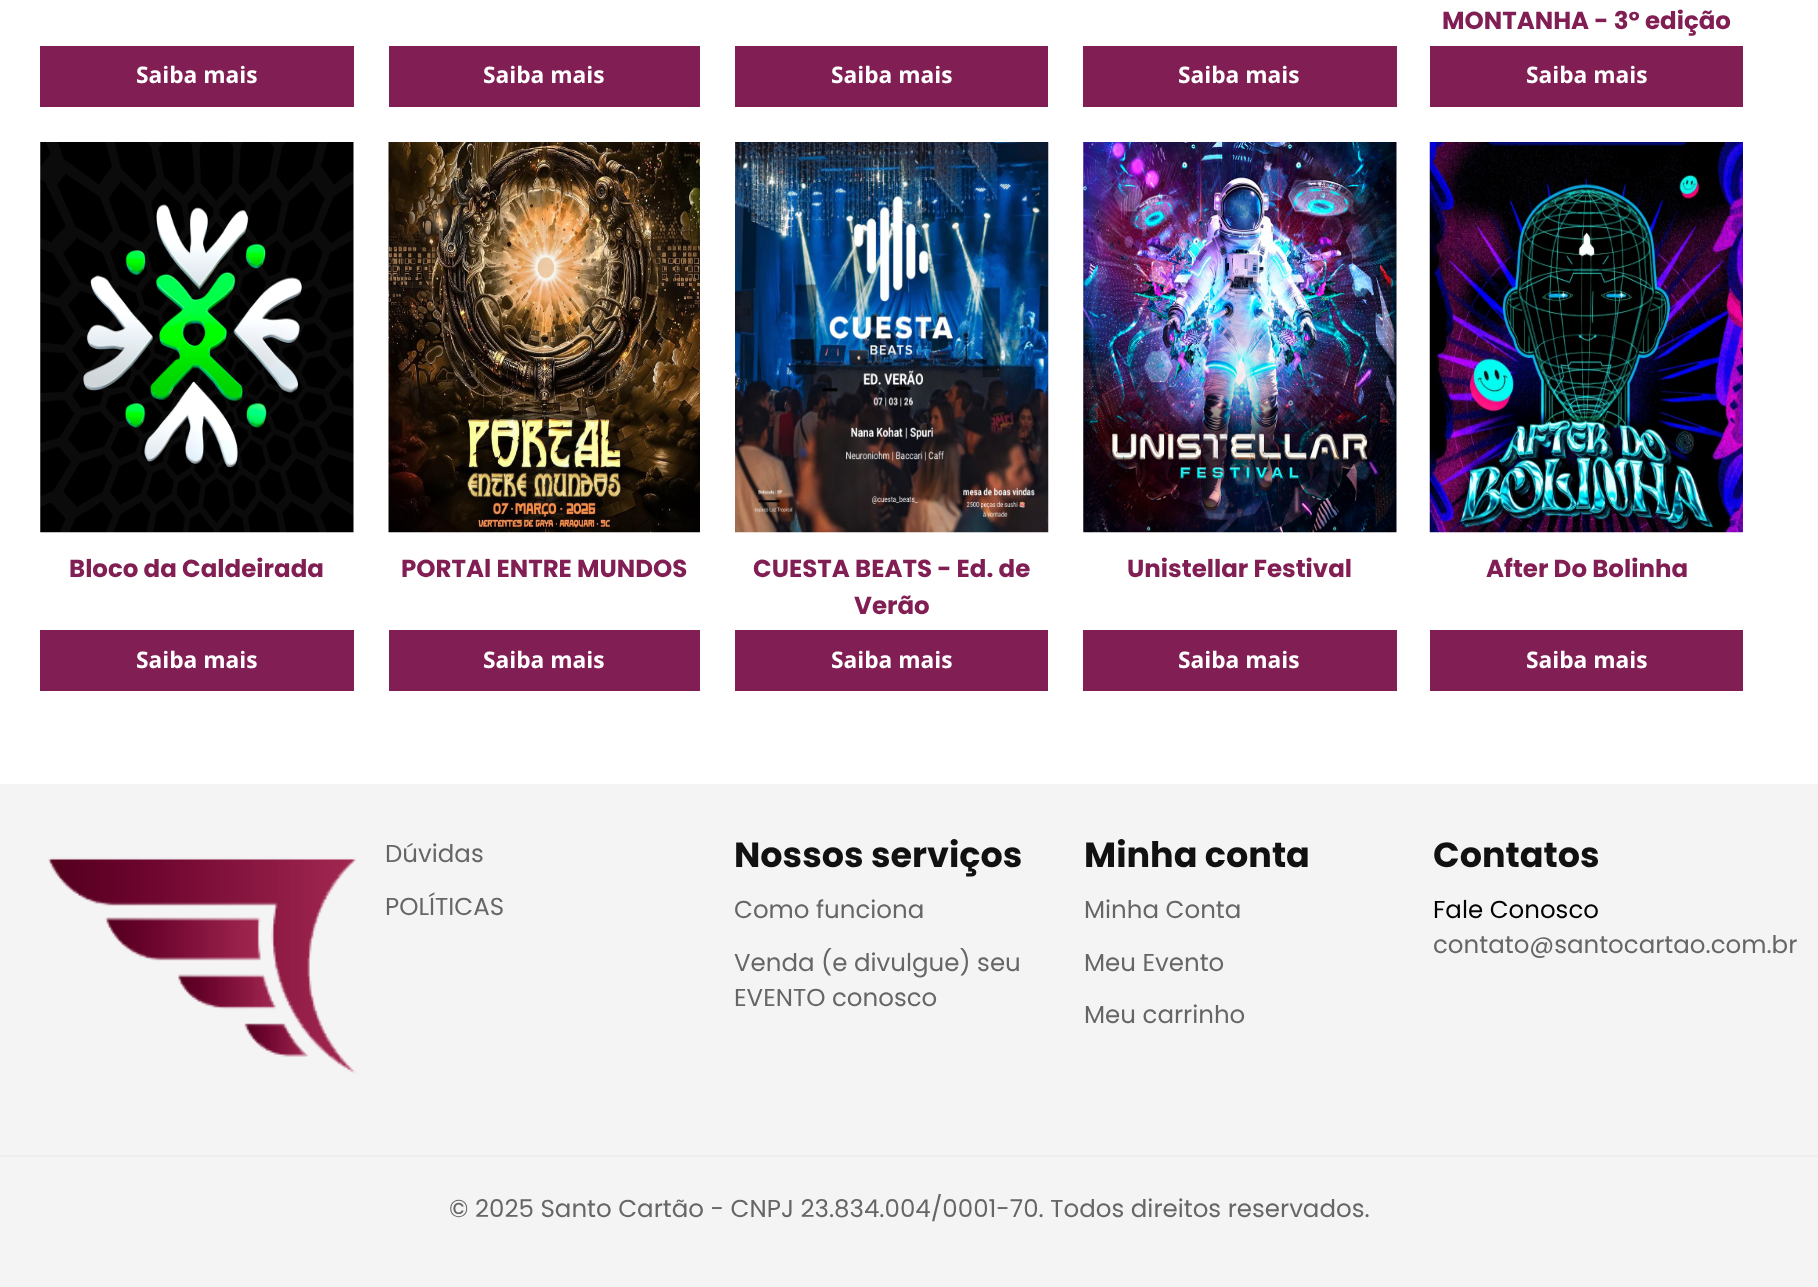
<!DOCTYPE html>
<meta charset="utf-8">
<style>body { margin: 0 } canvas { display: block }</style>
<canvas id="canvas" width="1818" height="1287"></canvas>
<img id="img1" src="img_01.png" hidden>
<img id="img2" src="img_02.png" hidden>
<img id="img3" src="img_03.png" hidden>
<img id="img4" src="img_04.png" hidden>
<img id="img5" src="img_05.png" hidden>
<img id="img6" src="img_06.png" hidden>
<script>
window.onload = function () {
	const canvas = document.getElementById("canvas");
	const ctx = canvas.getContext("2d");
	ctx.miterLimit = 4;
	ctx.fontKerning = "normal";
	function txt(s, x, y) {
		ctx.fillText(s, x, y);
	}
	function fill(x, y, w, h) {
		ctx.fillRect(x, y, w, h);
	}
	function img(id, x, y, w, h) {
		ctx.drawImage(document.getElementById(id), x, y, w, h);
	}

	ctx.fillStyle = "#FFFFFF";
	fill(0, 0, 1818, 1287);
	ctx.fillStyle = "#811E53";
	fill(40, 46, 314, 61);
	fill(389, 46, 311, 61);
	fill(735, 46, 313, 61);
	fill(1083, 46, 314, 61);
	fill(1430, 46, 313, 61);
	img("img1", 40, 142, 314, 391);
	fill(40, 630, 314, 61);
	img("img2", 388, 142, 312, 391);
	fill(389, 630, 311, 61);
	img("img3", 735, 142, 314, 391);
	fill(735, 630, 313, 61);
	img("img4", 1083, 142, 314, 391);
	fill(1083, 630, 314, 61);
	img("img5", 1429, 142, 314, 391);
	fill(1430, 630, 313, 61);
	ctx.fillStyle = "#F4F4F4";
	fill(0, 784, 1818, 503);
	img("img6", 48, 857, 309, 217);
	ctx.fillStyle = "#EEEEEE";
	fill(0, 1155, 1818, 2);
	ctx.font = "bold 22.75px Open Sans";
	ctx.fillStyle = "#FFFFFF";
	txt("Saiba mais", 136, 83);
	txt("Saiba mais", 483, 83);
	txt("Saiba mais", 831, 83);
	txt("Saiba mais", 1178, 83);
	ctx.font = "bold 24.5px Poppins";
	ctx.fillStyle = "#811E53";
	txt("MONTANHA - 3º edição", 1442, 29);
	ctx.font = "bold 22.75px Open Sans";
	ctx.fillStyle = "#FFFFFF";
	txt("Saiba mais", 1526, 83);
	ctx.font = "bold 24.5px Poppins";
	ctx.fillStyle = "#811E53";
	txt("Bloco da Caldeirada", 69, 577);
	ctx.font = "bold 22.75px Open Sans";
	ctx.fillStyle = "#FFFFFF";
	txt("Saiba mais", 136, 668);
	ctx.font = "bold 24.5px Poppins";
	ctx.fillStyle = "#811E53";
	txt("PORTAl ENTRE MUNDOS", 401, 577);
	ctx.font = "bold 22.75px Open Sans";
	ctx.fillStyle = "#FFFFFF";
	txt("Saiba mais", 483, 668);
	ctx.font = "bold 24.5px Poppins";
	ctx.fillStyle = "#811E53";
	txt("CUESTA BEATS - Ed. de", 753, 577);
	txt("Verão", 854, 614);
	ctx.font = "bold 22.75px Open Sans";
	ctx.fillStyle = "#FFFFFF";
	txt("Saiba mais", 831, 668);
	ctx.font = "bold 24.5px Poppins";
	ctx.fillStyle = "#811E53";
	txt("Unistellar Festival", 1127, 577);
	ctx.font = "bold 22.75px Open Sans";
	ctx.fillStyle = "#FFFFFF";
	txt("Saiba mais", 1178, 668);
	ctx.font = "bold 24.5px Poppins";
	ctx.fillStyle = "#811E53";
	txt("After Do Bolinha", 1486, 577);
	ctx.font = "bold 22.75px Open Sans";
	ctx.fillStyle = "#FFFFFF";
	txt("Saiba mais", 1526, 668);
	ctx.font = "24.5px Poppins";
	ctx.fillStyle = "#666666";
	txt("Dúvidas", 385, 862);
	txt("POLÍTICAS", 385, 915);
	ctx.font = "bold 35px Poppins";
	ctx.fillStyle = "#111111";
	txt("Nossos serviços", 734, 867);
	ctx.font = "24.5px Poppins";
	ctx.fillStyle = "#666666";
	txt("Como funciona", 734, 918);
	txt("Venda (e divulgue) seu", 734, 971);
	txt("EVENTO conosco", 734, 1006);
	ctx.font = "bold 35px Poppins";
	ctx.fillStyle = "#111111";
	txt("Minha conta", 1084, 867);
	ctx.font = "24.5px Poppins";
	ctx.fillStyle = "#666666";
	txt("Minha Conta", 1084, 918);
	txt("Meu Evento", 1084, 971);
	txt("Meu carrinho", 1084, 1023);
	ctx.font = "bold 35px Poppins";
	ctx.fillStyle = "#111111";
	txt("Contatos", 1433, 867);
	ctx.font = "24.5px Poppins";
	ctx.fillStyle = "#000000";
	txt("Fale Conosco", 1433, 918);
	ctx.fillStyle = "#666666";
	txt("contato@santocartao.com.br", 1433, 953);
	txt("© 2025 Santo Cartão - CNPJ 23.834.004/0001-70. Todos direitos reservados.", 449, 1217);
};
</script>
